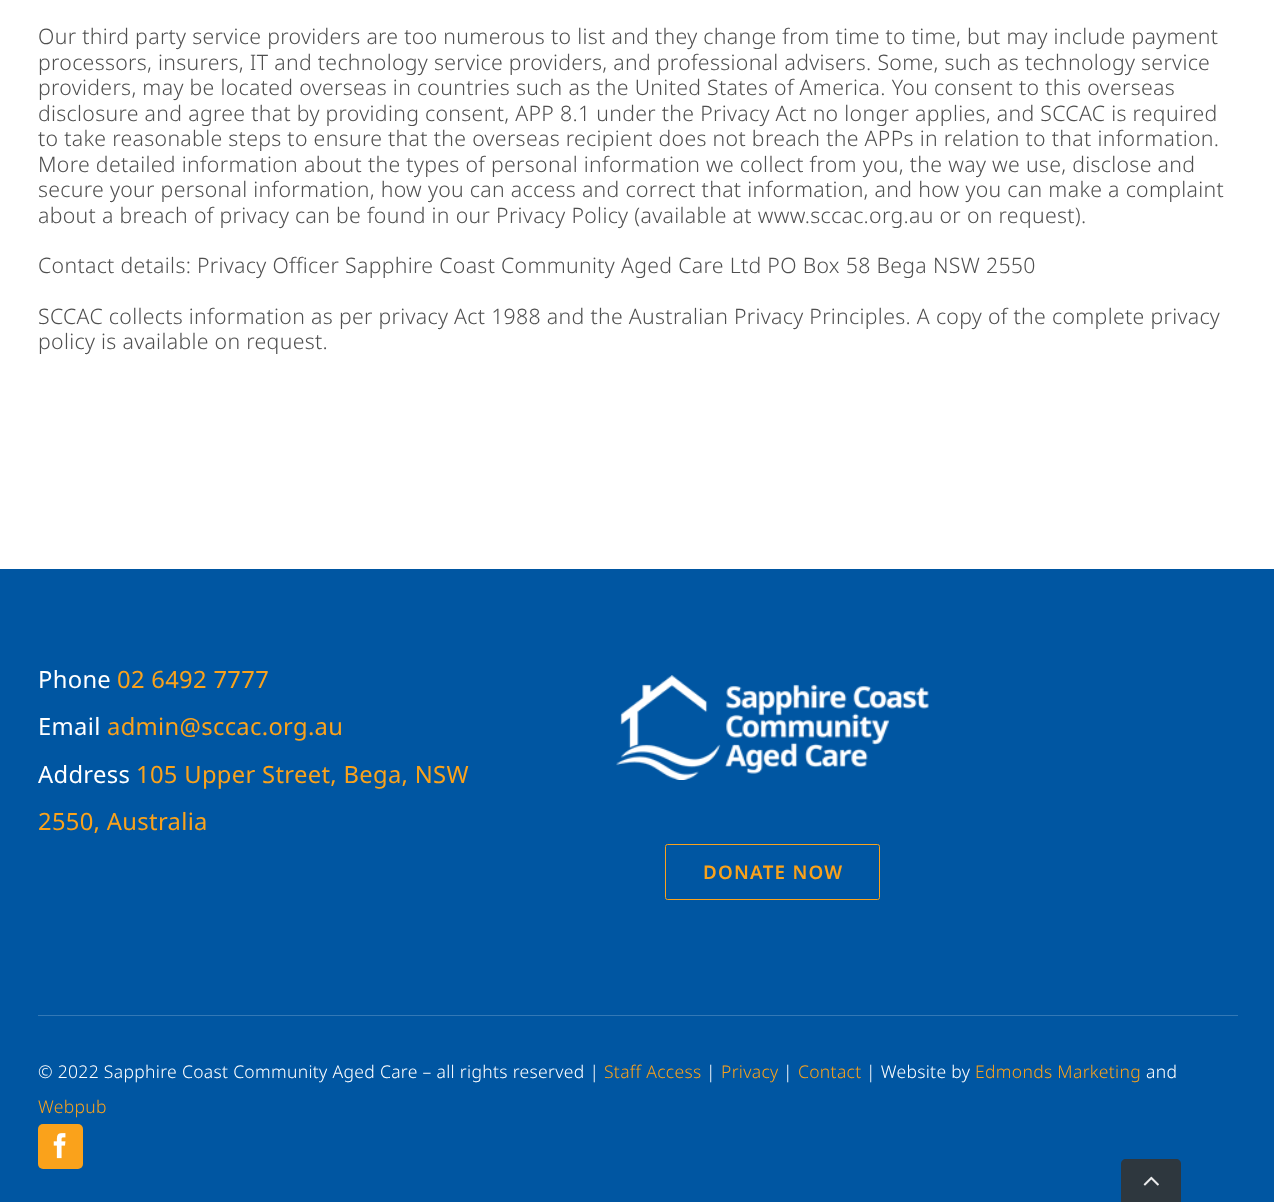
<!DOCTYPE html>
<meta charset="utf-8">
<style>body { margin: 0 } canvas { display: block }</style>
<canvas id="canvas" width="1274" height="1202"></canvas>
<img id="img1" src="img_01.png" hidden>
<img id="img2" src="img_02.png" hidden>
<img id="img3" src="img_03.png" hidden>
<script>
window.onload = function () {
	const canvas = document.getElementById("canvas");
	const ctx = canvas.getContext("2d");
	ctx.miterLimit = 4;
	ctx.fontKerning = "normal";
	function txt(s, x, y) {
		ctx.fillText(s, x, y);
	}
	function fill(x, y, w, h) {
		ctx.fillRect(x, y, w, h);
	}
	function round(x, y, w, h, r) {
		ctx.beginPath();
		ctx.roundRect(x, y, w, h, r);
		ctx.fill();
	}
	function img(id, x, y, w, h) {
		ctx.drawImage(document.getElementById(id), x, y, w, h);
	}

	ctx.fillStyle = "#FFFFFF";
	fill(0, 0, 1274, 1202);
	ctx.fillStyle = "#0056A2";
	fill(0, 569, 1274, 633);
	img("img1", 616, 675, 313, 105);
	ctx.beginPath();
	ctx.roundRect(665.5, 844.5, 214, 55, 2);
	ctx.strokeStyle = "#FAA21B";
	ctx.stroke();
	ctx.fillStyle = "#3378B5";
	fill(38, 1015, 1200, 1);
	ctx.fillStyle = "#FAA21B";
	round(38, 1124, 45, 45, 5);
	img("img2", 53, 1133, 13, 26);
	ctx.fillStyle = "#2E373E";
	ctx.beginPath();
	ctx.moveTo(1126, 1159);
	ctx.lineTo(1176, 1159);
	ctx.bezierCurveTo(1179, 1159, 1181, 1161, 1181, 1164);
	ctx.lineTo(1181, 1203);
	ctx.lineTo(1121, 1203);
	ctx.lineTo(1121, 1164);
	ctx.bezierCurveTo(1121, 1161, 1123, 1159, 1126, 1159);
	ctx.closePath();
	ctx.fill();
	img("img3", 1143, 1176, 16, 10);
	ctx.letterSpacing = "0.32px";
	ctx.font = "300 21.25px Noto Sans";
	ctx.fillStyle = "#4F4F4F";
	txt("Our third party service providers are too numerous to list and they change from time to time, but may include payment", 38, 44);
	txt("processors, insurers, IT and technology service providers, and professional advisers. Some, such as technology service", 38, 70);
	txt("providers, may be located overseas in countries such as the United States of America. You consent to this overseas", 38, 95);
	txt("disclosure and agree that by providing consent, APP 8.1 under the Privacy Act no longer applies, and SCCAC is required", 38, 121);
	txt("to take reasonable steps to ensure that the overseas recipient does not breach the APPs in relation to that information.", 38, 146);
	txt("More detailed information about the types of personal information we collect from you, the way we use, disclose and", 38, 172);
	txt("secure your personal information, how you can access and correct that information, and how you can make a complaint", 38, 197);
	txt("about a breach of privacy can be found in our Privacy Policy (available at www.sccac.org.au or on request).", 38, 223);
	txt("Contact details: Privacy Officer Sapphire Coast Community Aged Care Ltd PO Box 58 Bega NSW 2550", 38, 273);
	txt("SCCAC collects information as per privacy Act 1988 and the Australian Privacy Principles. A copy of the complete privacy", 38, 324);
	txt("policy is available on request.", 38, 349);
	ctx.font = "23.75px Noto Sans";
	ctx.fillStyle = "#FFFFFF";
	txt("Phone", 38, 688);
	ctx.fillStyle = "#FAA21B";
	txt("02 6492 7777", 117, 688);
	ctx.fillStyle = "#FFFFFF";
	txt("Email", 38, 735);
	ctx.fillStyle = "#FAA21B";
	txt("admin@sccac.org.au", 107, 735);
	ctx.fillStyle = "#FFFFFF";
	txt("Address", 38, 783);
	ctx.fillStyle = "#FAA21B";
	txt("105 Upper Street, Bega, NSW", 136, 783);
	txt("2550, Australia", 38, 830);
	ctx.letterSpacing = "1.25px";
	ctx.font = "600 18.75px Noto Sans";
	txt("DONATE NOW", 703, 879);
	ctx.letterSpacing = "0.32px";
	ctx.font = "300 17.5px Noto Sans";
	ctx.fillStyle = "#FFFFFF";
	txt("© 2022 Sapphire Coast Community Aged Care – all rights reserved |", 38, 1078);
	ctx.fillStyle = "#FAA21B";
	txt("Staff Access", 604, 1078);
	ctx.fillStyle = "#FFFFFF";
	txt("|", 706, 1078);
	ctx.fillStyle = "#FAA21B";
	txt("Privacy", 721, 1078);
	ctx.fillStyle = "#FFFFFF";
	txt("|", 783, 1078);
	ctx.fillStyle = "#FAA21B";
	txt("Contact", 798, 1078);
	ctx.fillStyle = "#FFFFFF";
	txt("| Website by", 866, 1078);
	ctx.fillStyle = "#FAA21B";
	txt("Edmonds Marketing", 975, 1078);
	ctx.fillStyle = "#FFFFFF";
	txt("and", 1146, 1078);
	ctx.fillStyle = "#FAA21B";
	txt("Webpub", 38, 1113);
};
</script>
